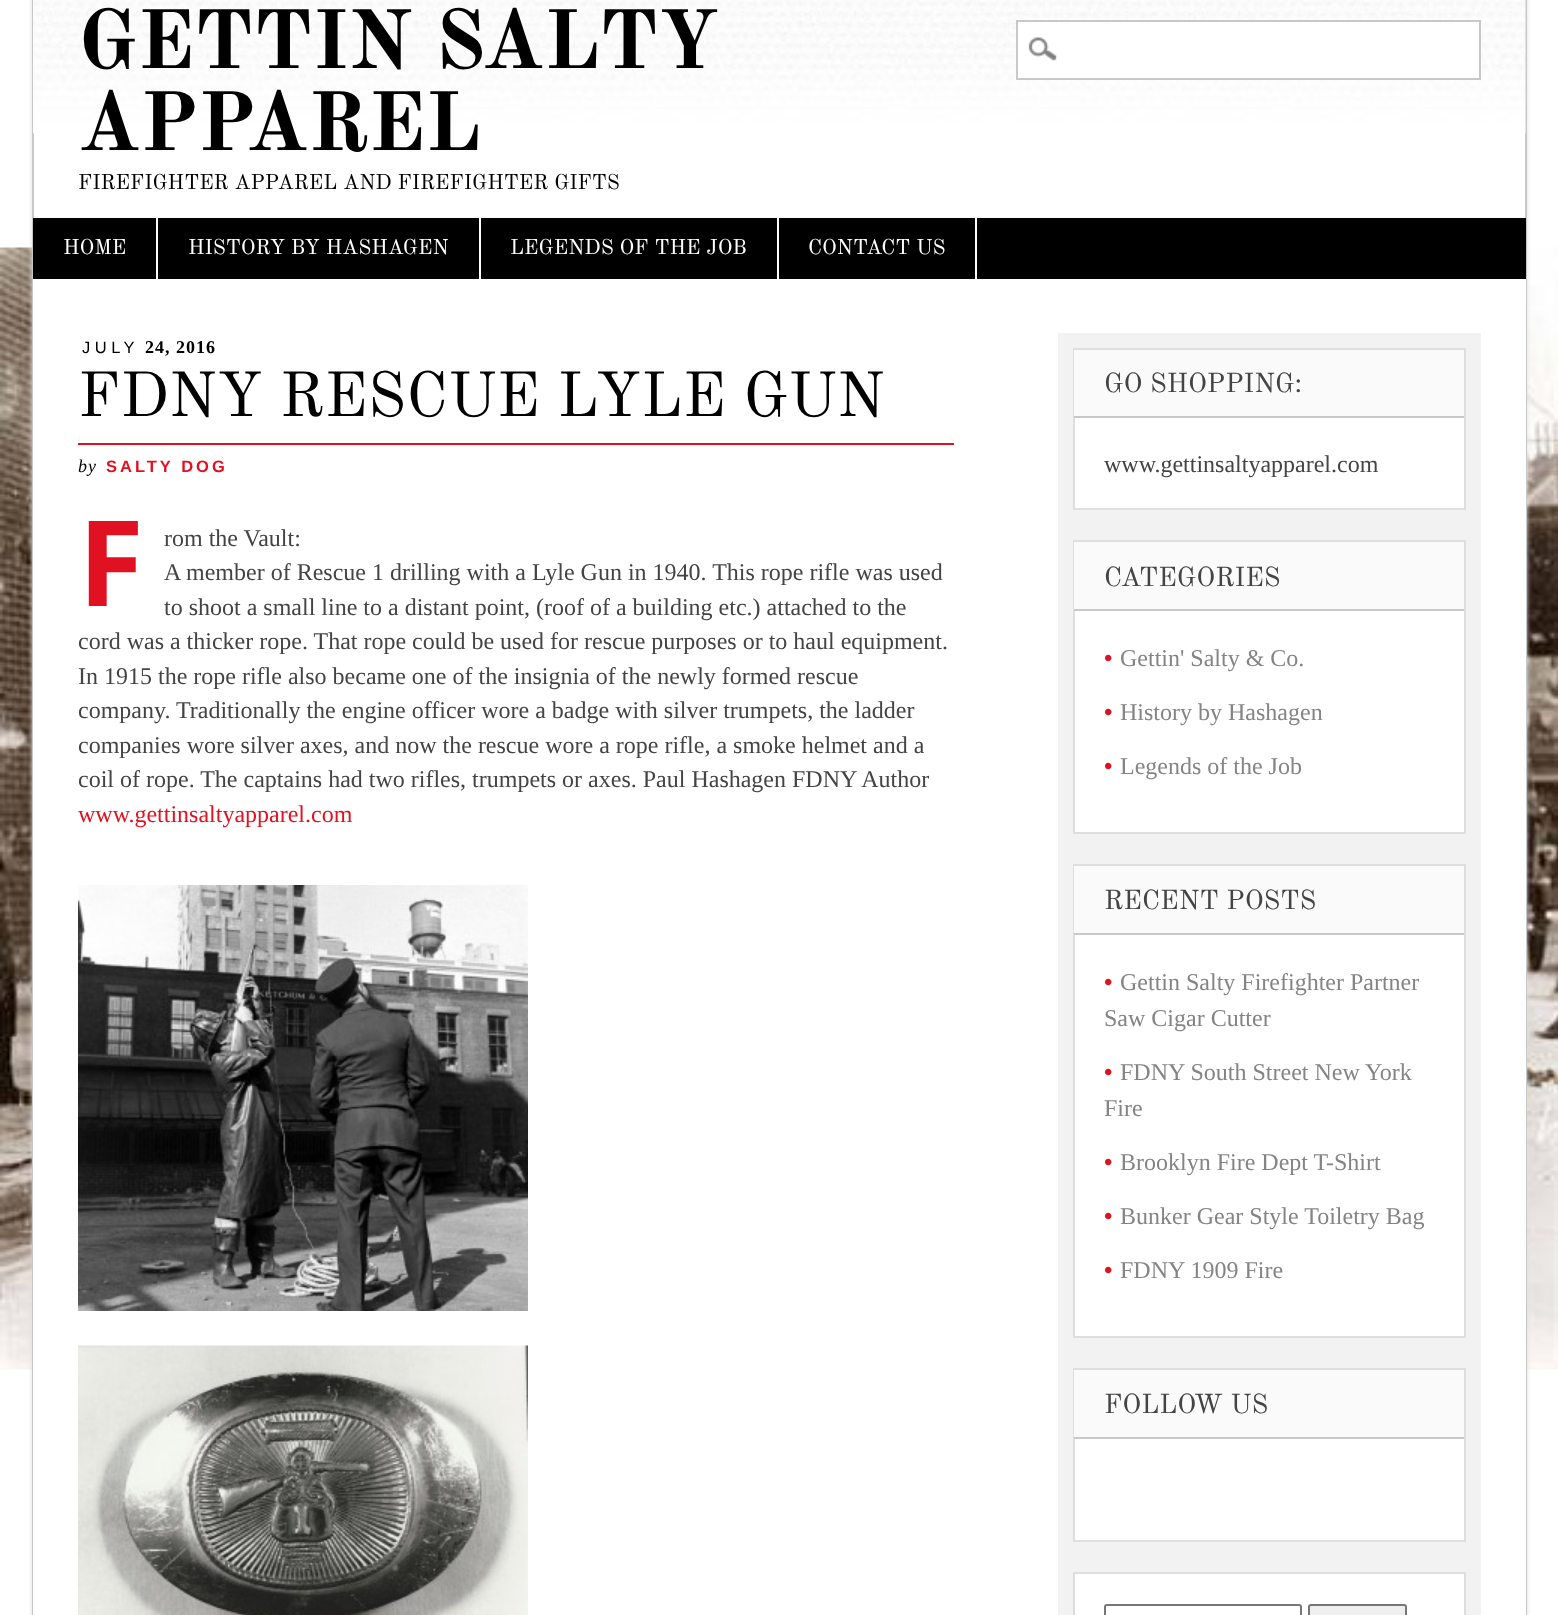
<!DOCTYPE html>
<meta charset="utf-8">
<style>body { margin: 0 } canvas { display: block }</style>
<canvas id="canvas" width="1558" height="1615"></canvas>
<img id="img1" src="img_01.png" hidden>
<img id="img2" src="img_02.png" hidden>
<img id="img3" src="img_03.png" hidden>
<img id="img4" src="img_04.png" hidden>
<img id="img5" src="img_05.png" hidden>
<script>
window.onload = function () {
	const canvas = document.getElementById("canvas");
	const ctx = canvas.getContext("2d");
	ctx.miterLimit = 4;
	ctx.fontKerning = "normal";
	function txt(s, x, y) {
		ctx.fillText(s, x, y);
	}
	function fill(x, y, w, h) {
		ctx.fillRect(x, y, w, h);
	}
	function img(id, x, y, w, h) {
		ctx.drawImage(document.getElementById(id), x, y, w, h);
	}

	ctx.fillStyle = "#FFFFFF";
	fill(0, 0, 1558, 1615);
	img("img1", 0, 247, 1558, 1123);
	ctx.fillStyle = "#DDDDDD";
	ctx.filter = "blur(2px)";
	ctx.beginPath();
	ctx.rect(32, -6, 1495, 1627);
	ctx.fill();
	ctx.filter = "none";
	ctx.fillStyle = "#FFFFFF";
	fill(34, 133, 1491, 85);
	ctx.strokeStyle = "#C7C8CA";
	ctx.lineWidth = 2;
	ctx.strokeRect(33, -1, 1493, 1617);
	img("img2", 33, 0, 1493, 134);
	fill(1018, 22, 461, 56);
	img("img3", 1028, 37, 29, 24);
	ctx.strokeRect(1017, 21, 463, 58);
	ctx.fillStyle = "#000000";
	fill(33, 218, 1493, 61);
	ctx.fillStyle = "#FFFFFF";
	fill(156, 218, 2, 61);
	fill(479, 218, 2, 61);
	fill(777, 218, 2, 61);
	fill(975, 218, 2, 61);
	fill(33, 279, 1493, 1336);
	ctx.fillStyle = "#E01222";
	fill(78, 443, 876, 2);
	img("img4", 78, 885, 450, 426);
	img("img5", 78, 1345, 450, 270);
	ctx.fillStyle = "#F2F2F2";
	fill(1058, 333, 423, 1282);
	ctx.fillStyle = "#FFFFFF";
	fill(1075, 418, 389, 90);
	ctx.strokeStyle = "#DEDEDE";
	ctx.strokeRect(1074, 349, 391, 160);
	ctx.fillStyle = "#FAFAFA";
	fill(1074, 350, 390, 66);
	ctx.fillStyle = "#C7C8CA";
	fill(1074, 416, 390, 2);
	ctx.fillStyle = "#FFFFFF";
	fill(1075, 611, 389, 221);
	ctx.strokeRect(1074, 541, 391, 292);
	ctx.fillStyle = "#FAFAFA";
	fill(1074, 542, 390, 67);
	ctx.fillStyle = "#C7C8CA";
	fill(1074, 609, 390, 2);
	ctx.fillStyle = "#FFFFFF";
	fill(1075, 935, 389, 401);
	ctx.strokeRect(1074, 865, 391, 472);
	ctx.fillStyle = "#FAFAFA";
	fill(1074, 866, 390, 67);
	ctx.fillStyle = "#C7C8CA";
	fill(1074, 933, 390, 2);
	ctx.fillStyle = "#FFFFFF";
	fill(1075, 1439, 389, 101);
	ctx.strokeRect(1074, 1369, 391, 172);
	ctx.fillStyle = "#FAFAFA";
	fill(1074, 1370, 390, 67);
	ctx.fillStyle = "#C7C8CA";
	fill(1074, 1437, 390, 2);
	ctx.fillStyle = "#FFFFFF";
	ctx.beginPath();
	ctx.rect(1074, 1573, 391, 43);
	ctx.fill();
	ctx.stroke();
	ctx.beginPath();
	ctx.roundRect(1105, 1605, 196, 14, 2);
	ctx.strokeStyle = "#767676";
	ctx.stroke();
	ctx.fillStyle = "#EFEFEF";
	ctx.beginPath();
	ctx.roundRect(1309, 1605, 97, 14, 2);
	ctx.fill();
	ctx.stroke();
	ctx.font = "bold 82.5px Old Standard TT";
	ctx.fillStyle = "#000000";
	txt("GETTIN SALTY", 78, 68);
	txt("APPAREL", 78, 150);
	ctx.font = "21px Old Standard TT";
	txt("FIREFIGHTER APPAREL AND FIREFIGHTER GIFTS", 78, 189);
	ctx.fillStyle = "#FFFFFF";
	txt("HOME", 63, 254);
	txt("HISTORY BY HASHAGEN", 188, 254);
	txt("LEGENDS OF THE JOB", 510, 254);
	txt("CONTACT US", 808, 254);
	ctx.letterSpacing = "4.5px";
	ctx.font = "16.5px Liberation Sans";
	ctx.fillStyle = "#000000";
	txt("JULY", 82, 353);
	ctx.letterSpacing = "1px";
	ctx.font = "bold 18px Liberation Serif";
	txt("24, 2016", 145, 353);
	ctx.letterSpacing = "0px";
	ctx.font = "62.4px Old Standard TT";
	txt("FDNY RESCUE LYLE GUN", 78, 416);
	ctx.letterSpacing = "1px";
	ctx.font = "italic 18px Liberation Serif";
	txt("by", 78, 472);
	ctx.letterSpacing = "3px";
	ctx.font = "bold 16.5px Liberation Sans";
	ctx.fillStyle = "#E01222";
	txt("SALTY DOG", 106, 472);
	ctx.save();
	ctx.beginPath();
	ctx.rect(78, 521, 876, 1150);
	ctx.clip();
	ctx.letterSpacing = "0px";
	ctx.font = "bold 120px Noto Sans";
	txt("F", 78, 606);
	ctx.restore();
	ctx.letterSpacing = "0px";
	ctx.font = "24px Liberation Serif";
	ctx.fillStyle = "#444444";
	txt("rom the Vault:", 164, 546);
	txt("A member of Rescue 1 drilling with a Lyle Gun in 1940. This rope rifle was used", 164, 580);
	txt("to shoot a small line to a distant point, (roof of a building etc.) attached to the", 164, 615);
	txt("cord was a thicker rope. That rope could be used for rescue purposes or to haul equipment.", 78, 649);
	txt("In 1915 the rope rifle also became one of the insignia of the newly formed rescue", 78, 684);
	txt("company. Traditionally the engine officer wore a badge with silver trumpets, the ladder", 78, 718);
	txt("companies wore silver axes, and now the rescue wore a rope rifle, a smoke helmet and a", 78, 753);
	txt("coil of rope. The captains had two rifles, trumpets or axes. Paul Hashagen FDNY Author", 78, 787);
	ctx.fillStyle = "#E01222";
	txt("www.gettinsaltyapparel.com", 78, 822);
	ctx.font = "27px Old Standard TT";
	ctx.fillStyle = "#444444";
	txt("GO SHOPPING:", 1104, 392);
	ctx.font = "24px Liberation Serif";
	txt("www.gettinsaltyapparel.com", 1104, 472);
	ctx.font = "27px Old Standard TT";
	txt("CATEGORIES", 1104, 586);
	ctx.font = "24px Liberation Sans";
	ctx.fillStyle = "#E01222";
	txt("•", 1104, 666);
	ctx.font = "24px Liberation Serif";
	ctx.fillStyle = "#848484";
	txt("Gettin' Salty & Co.", 1120, 666);
	ctx.font = "24px Liberation Sans";
	ctx.fillStyle = "#E01222";
	txt("•", 1104, 720);
	ctx.font = "24px Liberation Serif";
	ctx.fillStyle = "#848484";
	txt("History by Hashagen", 1120, 720);
	ctx.font = "24px Liberation Sans";
	ctx.fillStyle = "#E01222";
	txt("•", 1104, 774);
	ctx.font = "24px Liberation Serif";
	ctx.fillStyle = "#848484";
	txt("Legends of the Job", 1120, 774);
	ctx.font = "27px Old Standard TT";
	ctx.fillStyle = "#444444";
	txt("RECENT POSTS", 1104, 909);
	ctx.font = "24px Liberation Sans";
	ctx.fillStyle = "#E01222";
	txt("•", 1104, 990);
	ctx.font = "24px Liberation Serif";
	ctx.fillStyle = "#848484";
	txt("Gettin Salty Firefighter Partner", 1120, 990);
	txt("Saw Cigar Cutter", 1104, 1026);
	ctx.font = "24px Liberation Sans";
	ctx.fillStyle = "#E01222";
	txt("•", 1104, 1080);
	ctx.font = "24px Liberation Serif";
	ctx.fillStyle = "#848484";
	txt("FDNY South Street New York", 1120, 1080);
	txt("Fire", 1104, 1116);
	ctx.font = "24px Liberation Sans";
	ctx.fillStyle = "#E01222";
	txt("•", 1104, 1170);
	ctx.font = "24px Liberation Serif";
	ctx.fillStyle = "#848484";
	txt("Brooklyn Fire Dept T-Shirt", 1120, 1170);
	ctx.font = "24px Liberation Sans";
	ctx.fillStyle = "#E01222";
	txt("•", 1104, 1224);
	ctx.font = "24px Liberation Serif";
	ctx.fillStyle = "#848484";
	txt("Bunker Gear Style Toiletry Bag", 1120, 1224);
	ctx.font = "24px Liberation Sans";
	ctx.fillStyle = "#E01222";
	txt("•", 1104, 1278);
	ctx.font = "24px Liberation Serif";
	ctx.fillStyle = "#848484";
	txt("FDNY 1909 Fire", 1120, 1278);
	ctx.font = "27px Old Standard TT";
	ctx.fillStyle = "#444444";
	txt("FOLLOW US", 1104, 1413);
};
</script>
